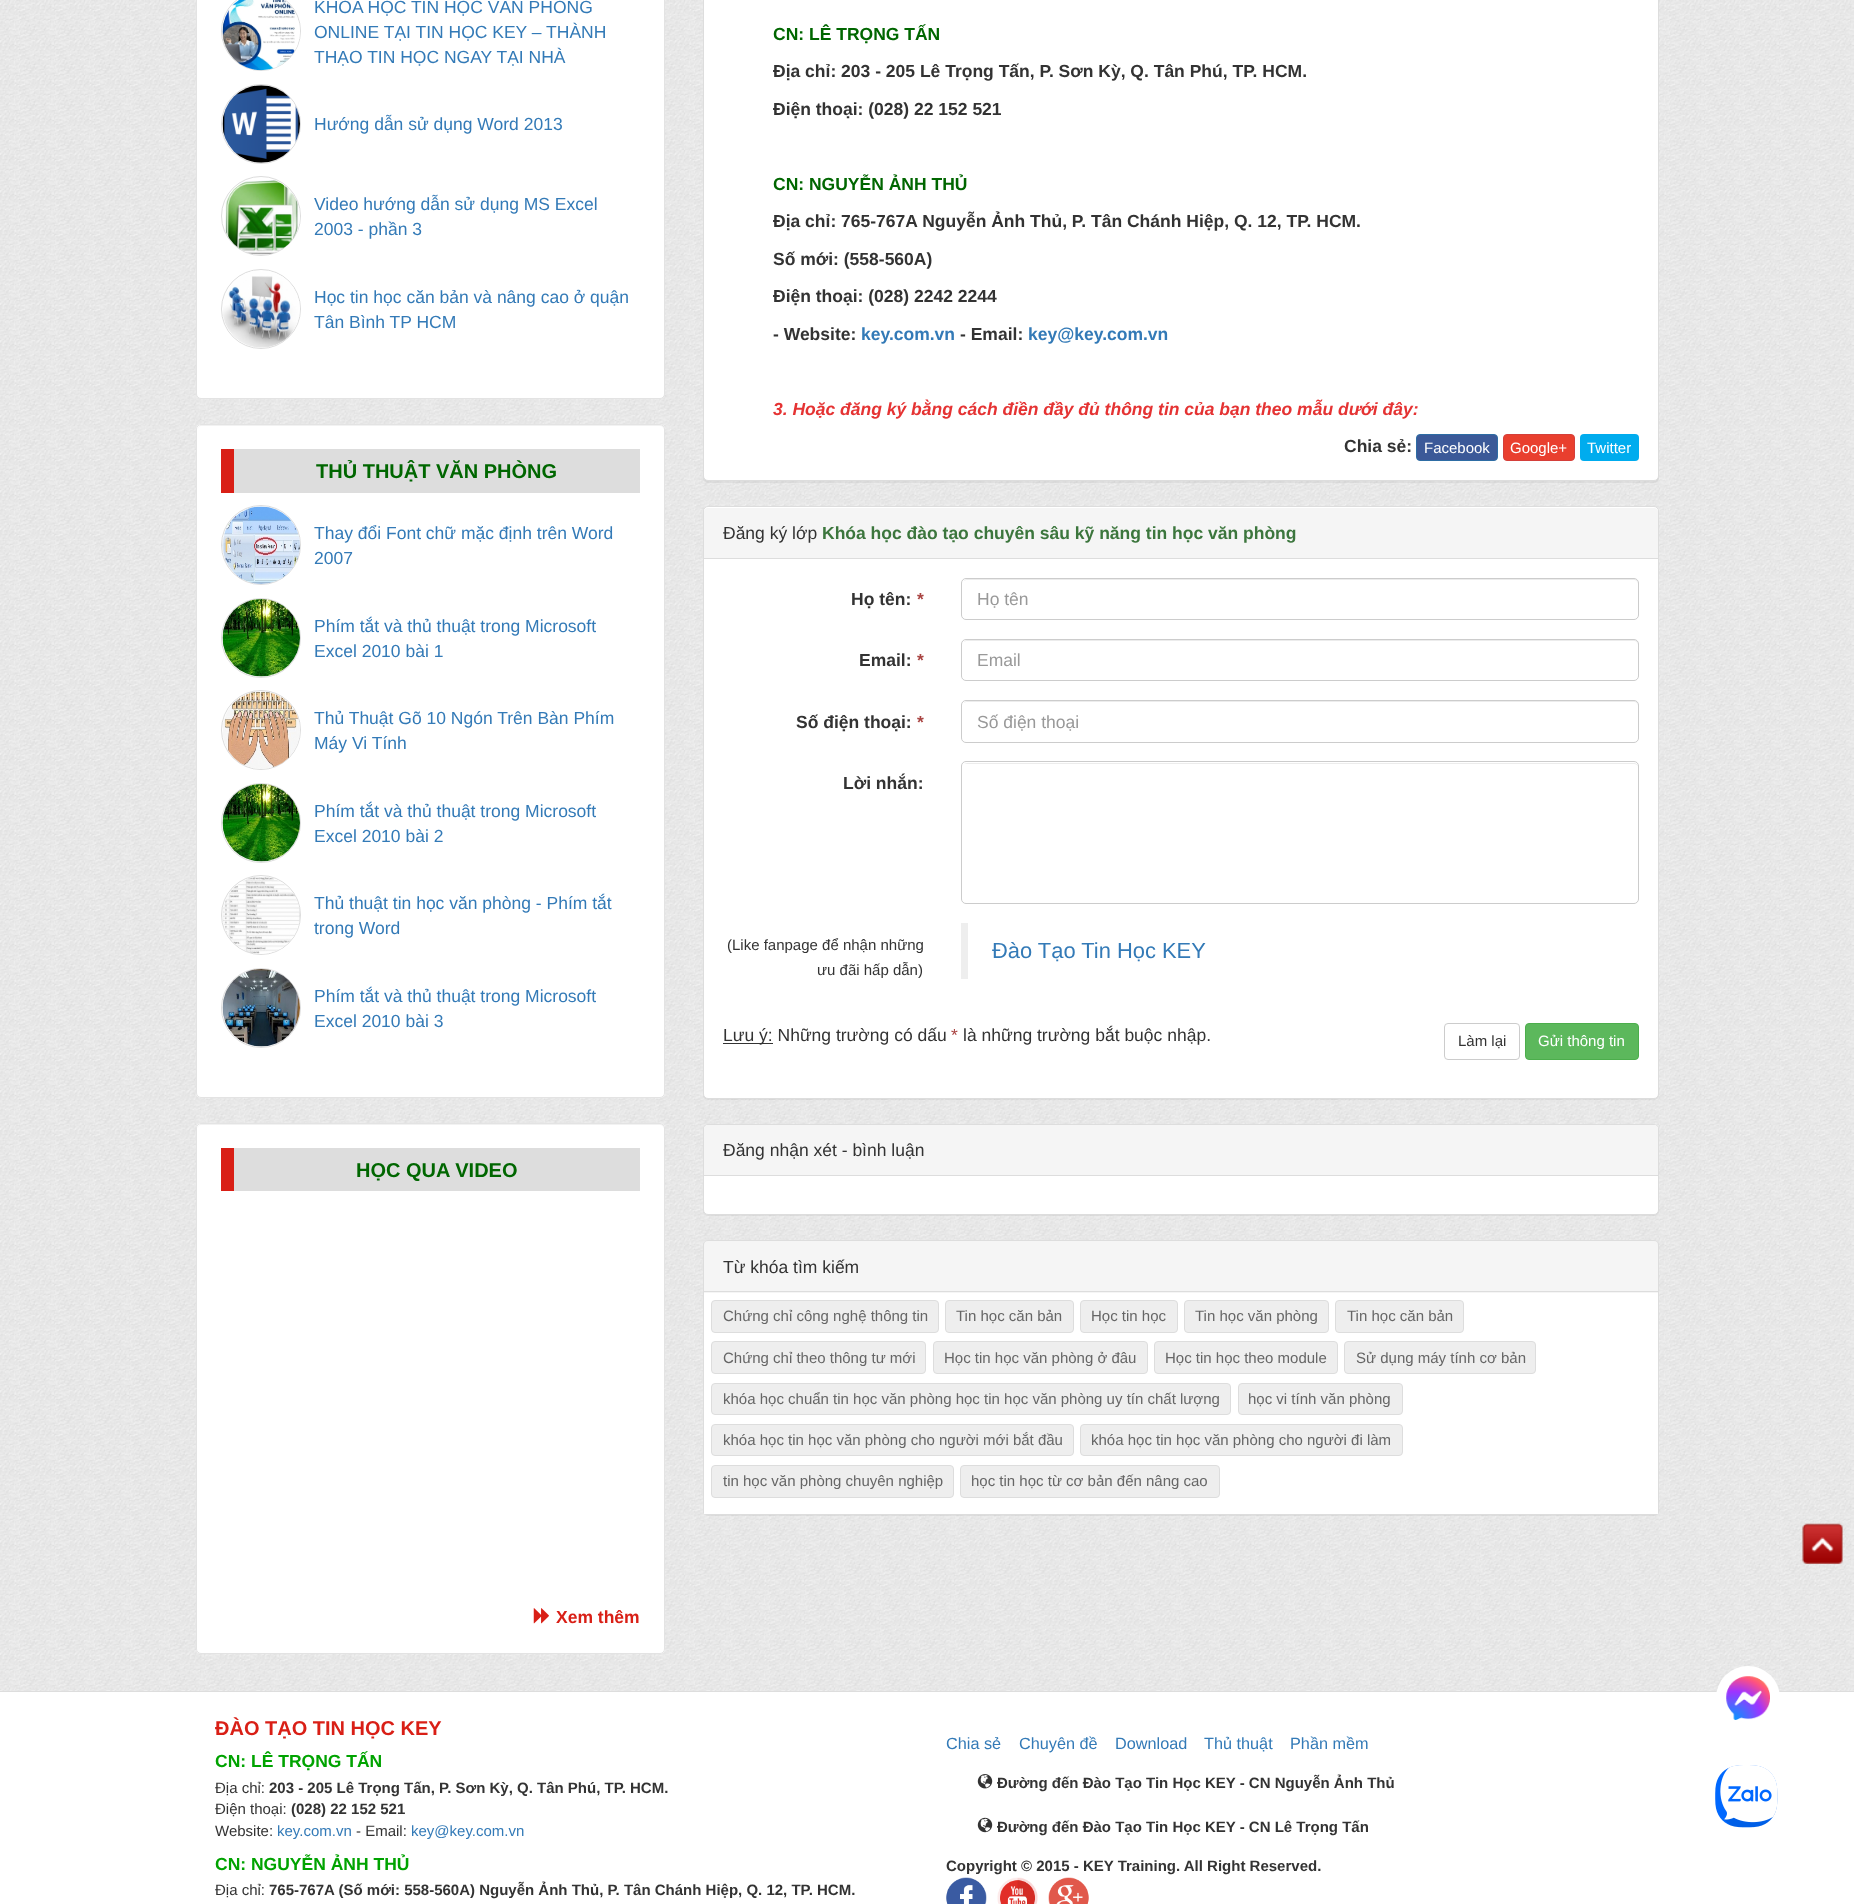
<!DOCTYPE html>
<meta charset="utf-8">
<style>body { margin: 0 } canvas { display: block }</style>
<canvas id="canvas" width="1854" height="1904"></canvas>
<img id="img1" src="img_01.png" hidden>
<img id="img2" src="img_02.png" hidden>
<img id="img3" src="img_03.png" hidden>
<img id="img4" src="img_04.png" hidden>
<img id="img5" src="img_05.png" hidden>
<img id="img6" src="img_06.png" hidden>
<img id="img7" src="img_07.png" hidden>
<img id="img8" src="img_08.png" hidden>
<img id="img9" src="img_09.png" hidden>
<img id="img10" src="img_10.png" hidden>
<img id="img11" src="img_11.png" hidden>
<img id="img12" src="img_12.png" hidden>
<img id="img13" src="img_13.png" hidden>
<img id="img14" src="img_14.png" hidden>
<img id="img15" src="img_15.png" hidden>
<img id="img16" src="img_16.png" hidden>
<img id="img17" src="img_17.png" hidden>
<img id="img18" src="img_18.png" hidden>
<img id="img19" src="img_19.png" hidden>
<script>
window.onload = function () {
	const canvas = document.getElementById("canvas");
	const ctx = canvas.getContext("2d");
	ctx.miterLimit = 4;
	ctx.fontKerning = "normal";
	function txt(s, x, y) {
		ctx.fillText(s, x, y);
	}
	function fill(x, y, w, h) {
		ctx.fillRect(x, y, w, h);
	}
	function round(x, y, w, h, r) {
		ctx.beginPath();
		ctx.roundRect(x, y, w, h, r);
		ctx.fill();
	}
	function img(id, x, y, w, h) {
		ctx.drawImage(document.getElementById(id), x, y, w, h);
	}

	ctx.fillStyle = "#FFFFFF";
	fill(0, 0, 1854, 1904);
	img("img1", 0, 0, 1854, 1691);
	ctx.beginPath();
	ctx.roundRect(196.5, -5.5, 468, 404, 4.5);
	ctx.fill();
	ctx.strokeStyle = "#E3E3E3";
	ctx.stroke();
	ctx.beginPath();
	ctx.arc(261, 31, 39.5, 0, Math.PI * 2);
	ctx.strokeStyle = "#DDDDDD";
	ctx.stroke();
	img("img2", 222, 0, 78, 71);
	ctx.beginPath();
	ctx.arc(261, 124, 39.5, 0, Math.PI * 2);
	ctx.stroke();
	img("img3", 222, 85, 78, 78);
	ctx.beginPath();
	ctx.arc(261, 216, 39.5, 0, Math.PI * 2);
	ctx.stroke();
	img("img4", 225, 180, 75, 75);
	ctx.beginPath();
	ctx.arc(261, 309, 39.5, 0, Math.PI * 2);
	ctx.stroke();
	img("img5", 223, 271, 77, 77);
	round(196, 424, 469, 674, 5);
	ctx.fillStyle = "#F2F2F2";
	ctx.beginPath();
	ctx.moveTo(201, 426);
	ctx.lineTo(660, 426);
	ctx.bezierCurveTo(662, 426, 664, 428, 664, 430);
	ctx.bezierCurveTo(664, 427, 663, 425, 660, 425);
	ctx.lineTo(202, 425);
	ctx.bezierCurveTo(199, 425, 198, 427, 198, 430);
	ctx.bezierCurveTo(198, 428, 199, 426, 201, 426);
	ctx.closePath();
	ctx.fill();
	ctx.beginPath();
	ctx.roundRect(196.5, 424.5, 468, 673, 4.5);
	ctx.strokeStyle = "#E3E3E3";
	ctx.stroke();
	ctx.fillStyle = "#DDDDDD";
	fill(234, 449, 406, 44);
	ctx.fillStyle = "#D91F16";
	fill(221, 449, 13, 44);
	ctx.beginPath();
	ctx.arc(261, 545, 39.5, 0, Math.PI * 2);
	ctx.strokeStyle = "#DDDDDD";
	ctx.stroke();
	img("img6", 222, 506, 78, 78);
	ctx.beginPath();
	ctx.arc(261, 638, 39.5, 0, Math.PI * 2);
	ctx.stroke();
	img("img7", 222, 599, 78, 78);
	ctx.beginPath();
	ctx.arc(261, 730, 39.5, 0, Math.PI * 2);
	ctx.stroke();
	img("img8", 223, 691, 77, 78);
	ctx.beginPath();
	ctx.arc(261, 823, 39.5, 0, Math.PI * 2);
	ctx.stroke();
	img("img7", 222, 784, 78, 78);
	ctx.beginPath();
	ctx.arc(261, 915, 39.5, 0, Math.PI * 2);
	ctx.stroke();
	img("img9", 222, 877, 78, 77);
	ctx.beginPath();
	ctx.arc(261, 1008, 39.5, 0, Math.PI * 2);
	ctx.stroke();
	img("img10", 222, 969, 78, 78);
	ctx.fillStyle = "#FFFFFF";
	round(196, 1123, 469, 531, 5);
	ctx.fillStyle = "#F2F2F2";
	ctx.beginPath();
	ctx.moveTo(201, 1125);
	ctx.lineTo(660, 1125);
	ctx.bezierCurveTo(662, 1125, 664, 1127, 664, 1129);
	ctx.bezierCurveTo(664, 1126, 663, 1124, 660, 1124);
	ctx.lineTo(202, 1124);
	ctx.bezierCurveTo(199, 1124, 198, 1126, 198, 1129);
	ctx.bezierCurveTo(198, 1127, 199, 1125, 201, 1125);
	ctx.closePath();
	ctx.fill();
	ctx.beginPath();
	ctx.roundRect(196.5, 1123.5, 468, 530, 4.5);
	ctx.strokeStyle = "#E3E3E3";
	ctx.stroke();
	ctx.fillStyle = "#DDDDDD";
	fill(234, 1148, 406, 43);
	ctx.fillStyle = "#D91F16";
	fill(221, 1148, 13, 43);
	img("img11", 533, 1608, 16, 16);
	ctx.fillStyle = "rgba(0, 0, 0, 0.05)";
	ctx.filter = "blur(0.5px)";
	ctx.beginPath();
	ctx.roundRect(703, -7, 956, 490, 5);
	ctx.fill();
	ctx.filter = "none";
	ctx.fillStyle = "#FFFFFF";
	ctx.beginPath();
	ctx.roundRect(703.5, -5.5, 955, 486, 4.5);
	ctx.fill();
	ctx.strokeStyle = "#DDDDDD";
	ctx.stroke();
	ctx.fillStyle = "#3B5998";
	ctx.beginPath();
	ctx.roundRect(1416.5, 434.5, 81, 26, 3.5);
	ctx.fill();
	ctx.strokeStyle = "#2E6DA4";
	ctx.stroke();
	ctx.fillStyle = "#E93F2E";
	ctx.beginPath();
	ctx.roundRect(1503.5, 434.5, 71, 26, 3.5);
	ctx.fill();
	ctx.strokeStyle = "#D43F3A";
	ctx.stroke();
	ctx.fillStyle = "#00ACEE";
	round(1580, 434, 59, 27, 4);
	ctx.fillStyle = "rgba(0, 0, 0, 0.05)";
	ctx.filter = "blur(0.5px)";
	ctx.beginPath();
	ctx.roundRect(703, 508, 956, 592, 5);
	ctx.fill();
	ctx.filter = "none";
	ctx.fillStyle = "#FFFFFF";
	ctx.beginPath();
	ctx.roundRect(703.5, 506.5, 955, 592, 4.5);
	ctx.fill();
	ctx.strokeStyle = "#DDDDDD";
	ctx.stroke();
	ctx.fillStyle = "#F5F5F5";
	ctx.beginPath();
	ctx.roundRect(704, 508, 954, 51, [4, 4, 0, 0]);
	ctx.fill();
	ctx.fillStyle = "#DDDDDD";
	fill(704, 558, 954, 1);
	ctx.fillStyle = "#ECECEC";
	ctx.beginPath();
	ctx.moveTo(966, 580);
	ctx.lineTo(1634, 580);
	ctx.bezierCurveTo(1636, 580, 1638, 582, 1638, 584);
	ctx.lineTo(1638, 583);
	ctx.bezierCurveTo(1638, 581, 1636, 579, 1634, 579);
	ctx.lineTo(967, 579);
	ctx.bezierCurveTo(966, 579, 964, 580, 964, 581);
	ctx.closePath();
	ctx.fill();
	ctx.beginPath();
	ctx.roundRect(961.5, 578.5, 677, 41, 4.5);
	ctx.strokeStyle = "#CCCCCC";
	ctx.stroke();
	ctx.beginPath();
	ctx.moveTo(966, 641);
	ctx.lineTo(1634, 641);
	ctx.bezierCurveTo(1636, 641, 1638, 643, 1638, 645);
	ctx.lineTo(1638, 644);
	ctx.bezierCurveTo(1638, 642, 1636, 640, 1634, 640);
	ctx.lineTo(967, 640);
	ctx.bezierCurveTo(966, 640, 964, 641, 964, 642);
	ctx.closePath();
	ctx.fill();
	ctx.beginPath();
	ctx.roundRect(961.5, 639.5, 677, 41, 4.5);
	ctx.stroke();
	ctx.beginPath();
	ctx.moveTo(966, 702);
	ctx.lineTo(1634, 702);
	ctx.bezierCurveTo(1636, 702, 1638, 704, 1638, 706);
	ctx.lineTo(1638, 705);
	ctx.bezierCurveTo(1638, 703, 1636, 701, 1634, 701);
	ctx.lineTo(967, 701);
	ctx.bezierCurveTo(966, 701, 964, 702, 964, 703);
	ctx.closePath();
	ctx.fill();
	ctx.beginPath();
	ctx.roundRect(961.5, 700.5, 677, 42, 4.5);
	ctx.stroke();
	ctx.beginPath();
	ctx.moveTo(966, 764);
	ctx.lineTo(1634, 764);
	ctx.bezierCurveTo(1636, 764, 1638, 765, 1638, 768);
	ctx.lineTo(1638, 767);
	ctx.bezierCurveTo(1638, 765, 1636, 763, 1634, 763);
	ctx.lineTo(967, 763);
	ctx.bezierCurveTo(966, 763, 965, 764, 964, 764);
	ctx.closePath();
	ctx.fill();
	ctx.beginPath();
	ctx.roundRect(961.5, 761.5, 677, 142, 4.5);
	ctx.stroke();
	ctx.fillStyle = "#EEEEEE";
	fill(961, 923, 7, 56);
	ctx.fillStyle = "#333333";
	fill(723, 1043, 50, 1);
	ctx.beginPath();
	ctx.roundRect(1444.5, 1023.5, 75, 36, 3.5);
	ctx.stroke();
	ctx.fillStyle = "#5CB85C";
	ctx.beginPath();
	ctx.roundRect(1525.5, 1023.5, 113, 36, 3.5);
	ctx.fill();
	ctx.strokeStyle = "#4CAE4C";
	ctx.stroke();
	ctx.fillStyle = "rgba(0, 0, 0, 0.05)";
	ctx.filter = "blur(0.5px)";
	ctx.beginPath();
	ctx.roundRect(703, 1125, 956, 91, 5);
	ctx.fill();
	ctx.filter = "none";
	ctx.fillStyle = "#FFFFFF";
	ctx.beginPath();
	ctx.roundRect(703.5, 1124.5, 955, 90, 4.5);
	ctx.fill();
	ctx.strokeStyle = "#DDDDDD";
	ctx.stroke();
	ctx.fillStyle = "#F5F5F5";
	ctx.beginPath();
	ctx.roundRect(704, 1125, 954, 51, [4, 4, 0, 0]);
	ctx.fill();
	ctx.fillStyle = "#DDDDDD";
	fill(704, 1175, 954, 1);
	ctx.fillStyle = "rgba(0, 0, 0, 0.05)";
	ctx.filter = "blur(0.5px)";
	ctx.beginPath();
	ctx.roundRect(703, 1241, 956, 275, 5);
	ctx.fill();
	ctx.filter = "none";
	ctx.beginPath();
	ctx.roundRect(703.5, 1240.5, 955, 274, 4.5);
	ctx.stroke();
	ctx.fillStyle = "#F5F5F5";
	ctx.beginPath();
	ctx.roundRect(704, 1241, 954, 52, [4, 4, 0, 0]);
	ctx.fill();
	ctx.fillStyle = "#DDDDDD";
	fill(704, 1291, 954, 1);
	ctx.fillStyle = "#FFFFFF";
	fill(704, 1293, 954, 221);
	ctx.fillStyle = "#EEEEEE";
	ctx.beginPath();
	ctx.roundRect(711.5, 1300.5, 227, 32, 3.5);
	ctx.fill();
	ctx.stroke();
	ctx.beginPath();
	ctx.roundRect(945.5, 1300.5, 128, 32, 3.5);
	ctx.fill();
	ctx.stroke();
	ctx.beginPath();
	ctx.roundRect(1080.5, 1300.5, 97, 32, 3.5);
	ctx.fill();
	ctx.stroke();
	ctx.beginPath();
	ctx.roundRect(1184.5, 1300.5, 144, 32, 3.5);
	ctx.fill();
	ctx.stroke();
	ctx.beginPath();
	ctx.roundRect(1335.5, 1300.5, 128, 32, 3.5);
	ctx.fill();
	ctx.stroke();
	ctx.beginPath();
	ctx.roundRect(711.5, 1341.5, 214, 32, 3.5);
	ctx.fill();
	ctx.stroke();
	ctx.beginPath();
	ctx.roundRect(933.5, 1341.5, 214, 32, 3.5);
	ctx.fill();
	ctx.stroke();
	ctx.beginPath();
	ctx.roundRect(1154.5, 1341.5, 183, 32, 3.5);
	ctx.fill();
	ctx.stroke();
	ctx.beginPath();
	ctx.roundRect(1344.5, 1341.5, 191, 32, 3.5);
	ctx.fill();
	ctx.stroke();
	ctx.beginPath();
	ctx.roundRect(711.5, 1383.5, 519, 31, 3.5);
	ctx.fill();
	ctx.stroke();
	ctx.beginPath();
	ctx.roundRect(1238.5, 1383.5, 164, 31, 3.5);
	ctx.fill();
	ctx.stroke();
	ctx.beginPath();
	ctx.roundRect(711.5, 1424.5, 362, 31, 3.5);
	ctx.fill();
	ctx.stroke();
	ctx.beginPath();
	ctx.roundRect(1080.5, 1424.5, 322, 31, 3.5);
	ctx.fill();
	ctx.stroke();
	ctx.beginPath();
	ctx.roundRect(711.5, 1465.5, 242, 32, 3.5);
	ctx.fill();
	ctx.stroke();
	ctx.beginPath();
	ctx.roundRect(960.5, 1465.5, 259, 32, 3.5);
	ctx.fill();
	ctx.stroke();
	img("img12", 1802, 1523, 41, 41);
	ctx.fillStyle = "#DDDDDD";
	fill(0, 1691, 1854, 1);
	ctx.fillStyle = "#FFFFFF";
	ctx.beginPath();
	ctx.arc(1748, 1698, 32, 0, Math.PI * 2);
	ctx.fill();
	img("img13", 1726, 1676, 44, 44);
	img("img14", 977, 1774, 16, 15);
	img("img15", 977, 1817, 16, 16);
	img("img16", 946, 1877, 41, 27);
	img("img17", 997, 1877, 41, 27);
	img("img18", 1048, 1877, 41, 27);
	img("img19", 1715, 1765, 63, 63);
	ctx.font = "17.5px Liberation Sans";
	ctx.fillStyle = "#337AB7";
	txt("KHÓA HỌC TIN HỌC VĂN PHÒNG", 314, 13);
	txt("ONLINE TẠI TIN HỌC KEY – THÀNH", 314, 38);
	txt("THẠO TIN HỌC NGAY TẠI NHÀ", 314, 63);
	txt("Hướng dẫn sử dụng Word 2013", 314, 130);
	txt("Video hướng dẫn sử dụng MS Excel", 314, 210);
	txt("2003 - phần 3", 314, 235);
	txt("Học tin học căn bản và nâng cao ở quận", 314, 303);
	txt("Tân Bình TP HCM", 314, 328);
	ctx.font = "bold 20px Liberation Sans";
	ctx.fillStyle = "#006600";
	txt("THỦ THUẬT VĂN PHÒNG", 316, 478);
	ctx.font = "17.5px Liberation Sans";
	ctx.fillStyle = "#337AB7";
	txt("Thay đổi Font chữ mặc định trên Word", 314, 539);
	txt("2007", 314, 564);
	txt("Phím tắt và thủ thuật trong Microsoft", 314, 632);
	txt("Excel 2010 bài 1", 314, 657);
	txt("Thủ Thuật Gõ 10 Ngón Trên Bàn Phím", 314, 724);
	txt("Máy Vi Tính", 314, 749);
	txt("Phím tắt và thủ thuật trong Microsoft", 314, 817);
	txt("Excel 2010 bài 2", 314, 842);
	txt("Thủ thuật tin học văn phòng - Phím tắt", 314, 909);
	txt("trong Word", 314, 934);
	txt("Phím tắt và thủ thuật trong Microsoft", 314, 1002);
	txt("Excel 2010 bài 3", 314, 1027);
	ctx.font = "bold 20px Liberation Sans";
	ctx.fillStyle = "#006600";
	txt("HỌC QUA VIDEO", 356, 1177);
	ctx.font = "bold 17.5px Liberation Sans";
	ctx.fillStyle = "#D91F16";
	txt("Xem thêm", 556, 1623);
	ctx.fillStyle = "#006600";
	txt("CN: LÊ TRỌNG TẤN", 773, 40);
	ctx.fillStyle = "#333333";
	txt("Địa chỉ: 203 - 205 Lê Trọng Tấn, P. Sơn Kỳ, Q. Tân Phú, TP. HCM.", 773, 77);
	txt("Điện thoại: (028) 22 152 521", 773, 115);
	ctx.fillStyle = "#006600";
	txt("CN: NGUYỄN ẢNH THỦ", 773, 190);
	ctx.fillStyle = "#333333";
	txt("Địa chỉ: 765-767A Nguyễn Ảnh Thủ, P. Tân Chánh Hiệp, Q. 12, TP. HCM.", 773, 227);
	txt("Số mới: (558-560A)", 773, 265);
	txt("Điện thoại: (028) 2242 2244", 773, 302);
	txt("- Website:", 773, 340);
	ctx.fillStyle = "#337AB7";
	txt("key.com.vn", 861, 340);
	ctx.fillStyle = "#333333";
	txt("- Email:", 960, 340);
	ctx.fillStyle = "#337AB7";
	txt("key@key.com.vn", 1028, 340);
	ctx.font = "italic bold 17.5px Liberation Sans";
	ctx.fillStyle = "#E53333";
	txt("3. Hoặc đăng ký bằng cách điền đầy đủ thông tin của bạn theo mẫu dưới đây:", 773, 415);
	ctx.font = "bold 17.5px Liberation Sans";
	ctx.fillStyle = "#333333";
	txt("Chia sẻ:", 1344, 452);
	ctx.font = "15px Liberation Sans";
	ctx.fillStyle = "#FFFFFF";
	txt("Facebook", 1424, 453);
	txt("Google+", 1510, 453);
	txt("Twitter", 1587, 453);
	ctx.font = "17.5px Liberation Sans";
	ctx.fillStyle = "#333333";
	txt("Đăng ký lớp", 723, 539);
	ctx.font = "bold 17.5px Liberation Sans";
	ctx.fillStyle = "#3C763D";
	txt("Khóa học đào tạo chuyên sâu kỹ năng tin học văn phòng", 822, 539);
	ctx.fillStyle = "#333333";
	txt("Họ tên:", 851, 605);
	ctx.fillStyle = "#A94442";
	txt("*", 917, 605);
	ctx.font = "17.5px Liberation Sans";
	ctx.fillStyle = "#999999";
	txt("Họ tên", 977, 605);
	ctx.font = "bold 17.5px Liberation Sans";
	ctx.fillStyle = "#333333";
	txt("Email:", 859, 666);
	ctx.fillStyle = "#A94442";
	txt("*", 917, 666);
	ctx.font = "17.5px Liberation Sans";
	ctx.fillStyle = "#999999";
	txt("Email", 977, 666);
	ctx.font = "bold 17.5px Liberation Sans";
	ctx.fillStyle = "#333333";
	txt("Số điện thoại:", 796, 728);
	ctx.fillStyle = "#A94442";
	txt("*", 917, 728);
	ctx.font = "17.5px Liberation Sans";
	ctx.fillStyle = "#999999";
	txt("Số điện thoại", 977, 728);
	ctx.font = "bold 17.5px Liberation Sans";
	ctx.fillStyle = "#333333";
	txt("Lời nhắn:", 843, 789);
	ctx.font = "15px Liberation Sans";
	txt("(Like fanpage để nhận những", 727, 950);
	txt("ưu đãi hấp dẫn)", 817, 975);
	ctx.font = "21.9px Liberation Sans";
	ctx.fillStyle = "#337AB7";
	txt("Đào Tạo Tin Học KEY", 992, 958);
	ctx.font = "17.5px Liberation Sans";
	ctx.fillStyle = "#333333";
	txt("Lưu ý: Những trường có dấu", 723, 1041);
	ctx.fillStyle = "#A94442";
	txt("*", 951, 1041);
	ctx.fillStyle = "#333333";
	txt("là những trường bắt buộc nhập.", 963, 1041);
	ctx.font = "15px Liberation Sans";
	txt("Làm lại", 1458, 1046);
	ctx.fillStyle = "#FFFFFF";
	txt("Gửi thông tin", 1538, 1046);
	ctx.font = "17.5px Liberation Sans";
	ctx.fillStyle = "#333333";
	txt("Đăng nhận xét - bình luận", 723, 1156);
	txt("Từ khóa tìm kiếm", 723, 1273);
	ctx.font = "15px Liberation Sans";
	ctx.fillStyle = "#666666";
	txt("Chứng chỉ công nghệ thông tin", 723, 1321);
	txt("Tin học căn bản", 956, 1321);
	txt("Học tin học", 1091, 1321);
	txt("Tin học văn phòng", 1195, 1321);
	txt("Tin học căn bản", 1347, 1321);
	txt("Chứng chỉ theo thông tư mới", 723, 1363);
	txt("Học tin học văn phòng ở đâu", 944, 1363);
	txt("Học tin học theo module", 1165, 1363);
	txt("Sử dụng máy tính cơ bản", 1356, 1363);
	txt("khóa học chuẩn tin học văn phòng học tin học văn phòng uy tín chất lượng", 723, 1404);
	txt("học vi tính văn phòng", 1248, 1404);
	txt("khóa học tin học văn phòng cho người mới bắt đầu", 723, 1445);
	txt("khóa học tin học văn phòng cho người đi làm", 1091, 1445);
	txt("tin học văn phòng chuyên nghiệp", 723, 1486);
	txt("học tin học từ cơ bản đến nâng cao", 971, 1486);
	ctx.font = "bold 20px Liberation Sans";
	ctx.fillStyle = "#D91F16";
	txt("ĐÀO TẠO TIN HỌC KEY", 215, 1735);
	ctx.font = "bold 17.5px Liberation Sans";
	ctx.fillStyle = "#00A300";
	txt("CN: LÊ TRỌNG TẤN", 215, 1767);
	ctx.font = "15px Liberation Sans";
	ctx.fillStyle = "#333333";
	txt("Địa chỉ:", 215, 1793);
	ctx.font = "bold 15px Liberation Sans";
	txt("203 - 205 Lê Trọng Tấn, P. Sơn Kỳ, Q. Tân Phú, TP. HCM.", 269, 1793);
	ctx.font = "15px Liberation Sans";
	txt("Điện thoại:", 215, 1814);
	ctx.font = "bold 15px Liberation Sans";
	txt("(028) 22 152 521", 291, 1814);
	ctx.font = "15px Liberation Sans";
	txt("Website:", 215, 1836);
	ctx.fillStyle = "#337AB7";
	txt("key.com.vn", 277, 1836);
	ctx.fillStyle = "#333333";
	txt("- Email:", 356, 1836);
	ctx.fillStyle = "#337AB7";
	txt("key@key.com.vn", 411, 1836);
	ctx.font = "bold 17.5px Liberation Sans";
	ctx.fillStyle = "#00A300";
	txt("CN: NGUYỄN ẢNH THỦ", 215, 1870);
	ctx.font = "15px Liberation Sans";
	ctx.fillStyle = "#333333";
	txt("Địa chỉ:", 215, 1895);
	ctx.font = "bold 15px Liberation Sans";
	txt("765-767A (Số mới: 558-560A) Nguyễn Ảnh Thủ, P. Tân Chánh Hiệp, Q. 12, TP. HCM.", 269, 1895);
	ctx.font = "16.25px Liberation Sans";
	ctx.fillStyle = "#337AB7";
	txt("Chia sẻ", 946, 1749);
	txt("Chuyên đề", 1019, 1749);
	txt("Download", 1115, 1749);
	txt("Thủ thuật", 1204, 1749);
	txt("Phần mềm", 1290, 1749);
	ctx.font = "bold 15px Liberation Sans";
	ctx.fillStyle = "#333333";
	txt("Đường đến Đào Tạo Tin Học KEY - CN Nguyễn Ảnh Thủ", 997, 1788);
	txt("Đường đến Đào Tạo Tin Học KEY - CN Lê Trọng Tấn", 997, 1832);
	txt("Copyright © 2015 - KEY Training. All Right Reserved.", 946, 1871);
};
</script>
